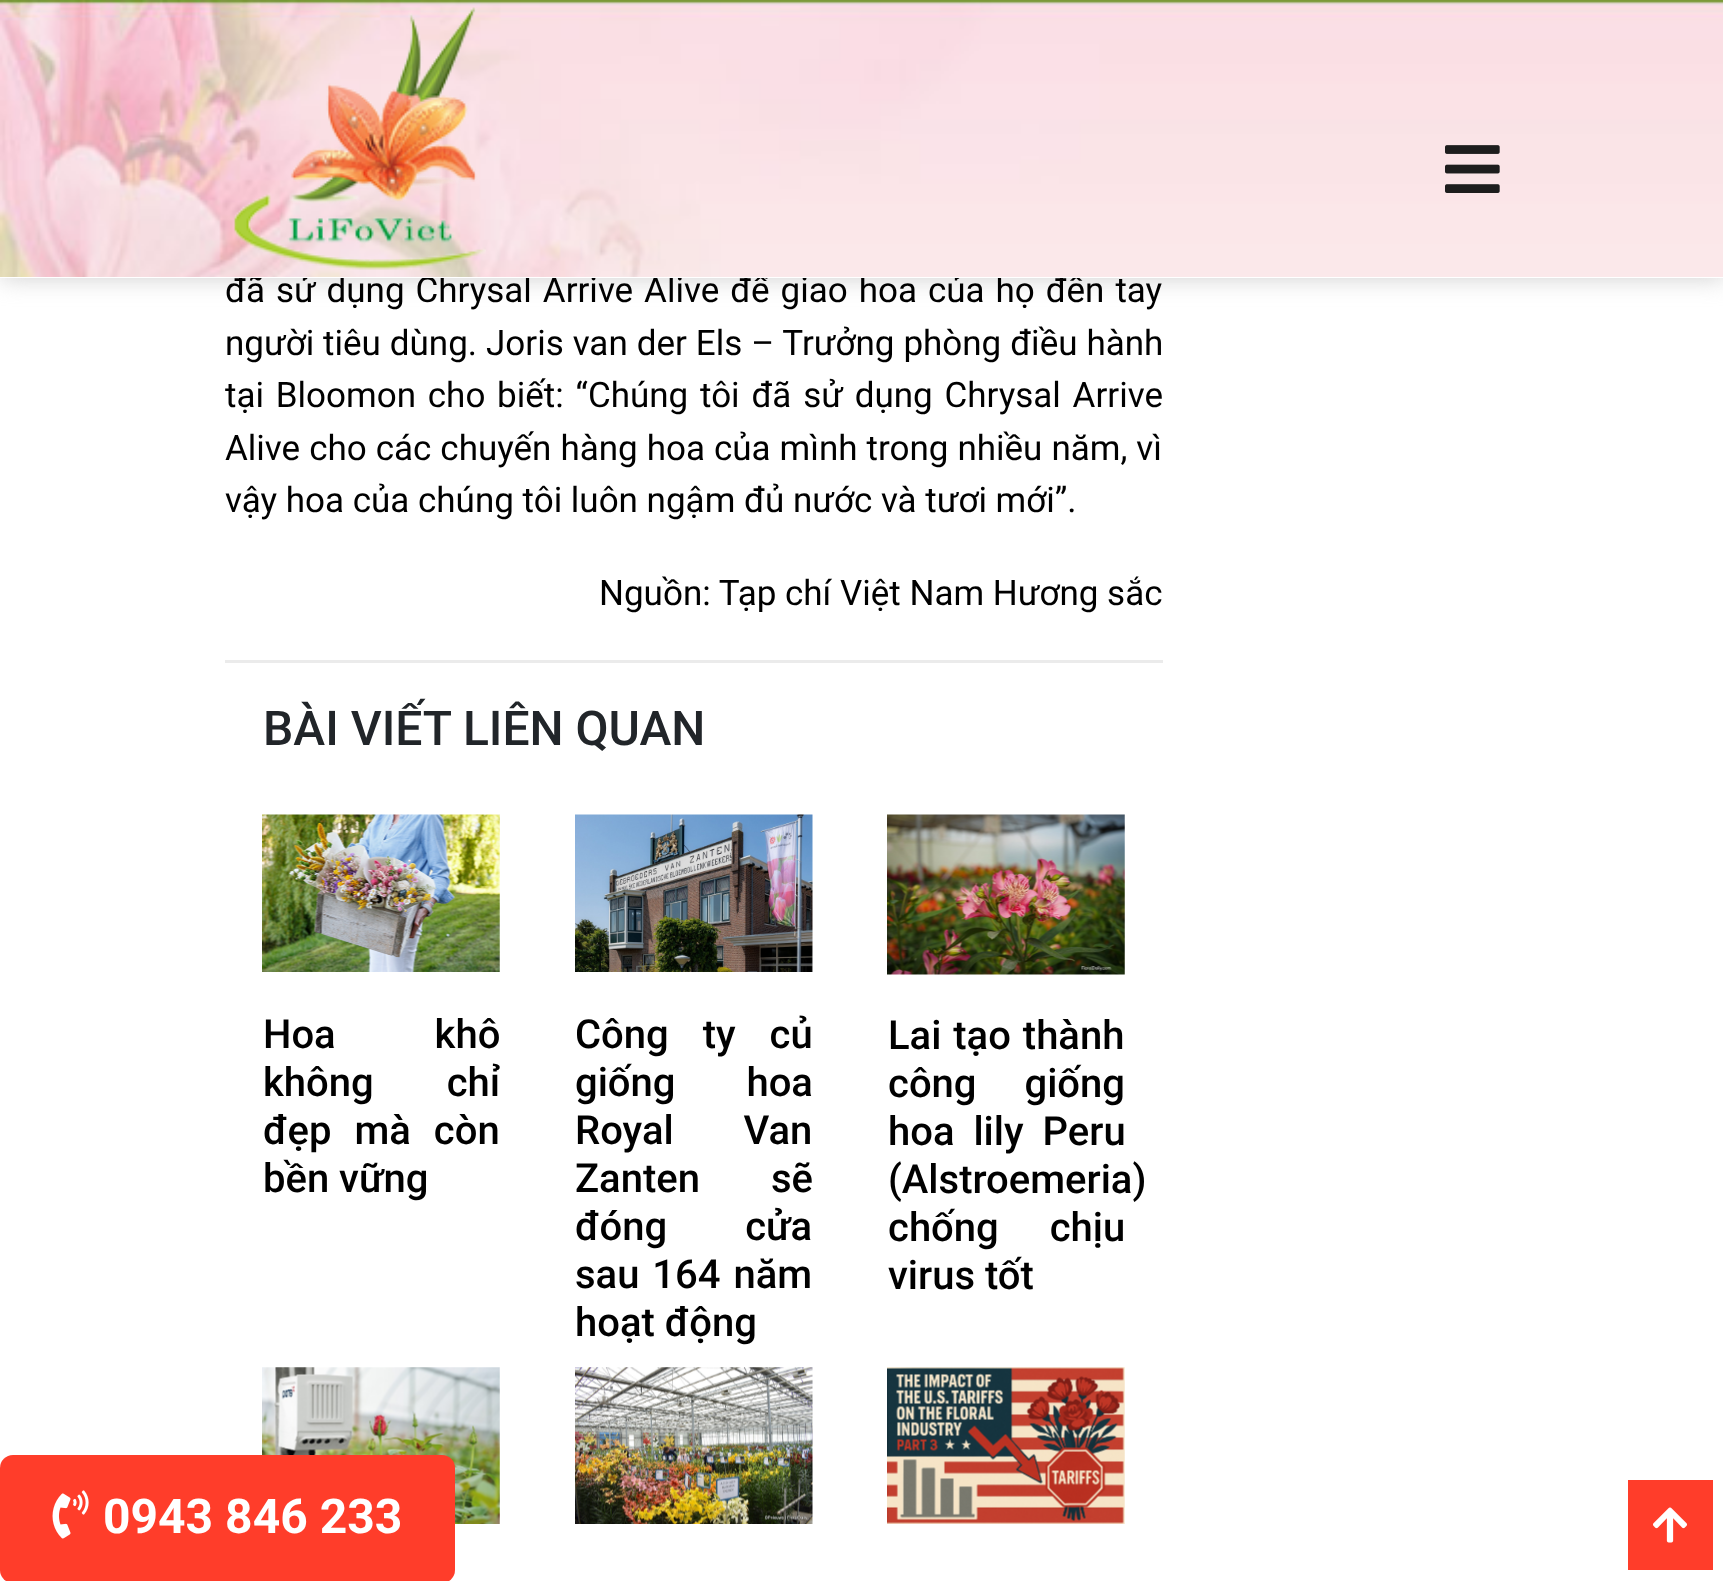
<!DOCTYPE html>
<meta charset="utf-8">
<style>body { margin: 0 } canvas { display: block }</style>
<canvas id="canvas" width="1723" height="1581"></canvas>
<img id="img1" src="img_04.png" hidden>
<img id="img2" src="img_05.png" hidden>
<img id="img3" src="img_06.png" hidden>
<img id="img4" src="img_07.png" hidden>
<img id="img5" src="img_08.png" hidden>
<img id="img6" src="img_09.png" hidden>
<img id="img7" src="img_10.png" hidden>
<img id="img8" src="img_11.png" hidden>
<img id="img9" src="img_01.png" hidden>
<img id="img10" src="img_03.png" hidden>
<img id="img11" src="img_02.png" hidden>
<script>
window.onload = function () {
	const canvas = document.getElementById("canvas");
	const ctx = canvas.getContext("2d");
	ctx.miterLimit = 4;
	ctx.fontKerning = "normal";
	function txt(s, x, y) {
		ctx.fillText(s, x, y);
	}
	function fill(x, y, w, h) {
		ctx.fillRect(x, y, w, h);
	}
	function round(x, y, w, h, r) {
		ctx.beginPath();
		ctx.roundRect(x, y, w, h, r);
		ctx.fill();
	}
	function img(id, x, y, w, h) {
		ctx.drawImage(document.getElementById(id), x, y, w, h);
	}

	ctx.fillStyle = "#FFFFFF";
	fill(0, 0, 1723, 1581);
	ctx.fillStyle = "rgba(195, 195, 195, 0.8)";
	ctx.filter = "blur(12.5px)";
	ctx.beginPath();
	ctx.rect(0, 0, 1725, 278);
	ctx.fill();
	ctx.filter = "none";
	ctx.fillStyle = "#EBEBEB";
	fill(225, 660, 938, 3);
	img("img1", 262, 814, 238, 158);
	img("img2", 575, 814, 238, 158);
	img("img3", 887, 814, 238, 161);
	img("img4", 262, 1367, 238, 157);
	img("img5", 575, 1367, 238, 157);
	img("img6", 887, 1367, 238, 157);
	ctx.fillStyle = "#FF3D2A";
	round(0, 1455, 455, 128, 13);
	img("img7", 52, 1490, 37, 49);
	fill(1628, 1480, 85, 90);
	img("img8", 1653, 1507, 34, 36);
	ctx.wordSpacing = "2.25px";
	ctx.font = "35px Roboto";
	ctx.fillStyle = "#000000";
	txt("đã sử dụng Chrysal Arrive Alive để giao hoa của họ đến tay", 225, 302);
	img("img9", 0, 0, 1723, 277);
	img("img10", 1445, 145, 55, 48);
	img("img11", 234, 7, 252, 263);
	ctx.fillStyle = "#FFFFFF";
	fill(0, 277, 1723, 1);
	ctx.wordSpacing = "0.25px";
	ctx.fillStyle = "#000000";
	txt("người tiêu dùng. Joris van der Els – Trưởng phòng điều hành", 225, 355);
	ctx.wordSpacing = "3.1px";
	txt("tại Bloomon cho biết: “Chúng tôi đã sử dụng Chrysal Arrive", 225, 407);
	ctx.wordSpacing = "0.3px";
	txt("Alive cho các chuyến hàng hoa của mình trong nhiều năm, vì", 225, 460);
	ctx.wordSpacing = "0px";
	txt("vậy hoa của chúng tôi luôn ngậm đủ nước và tươi mới”.", 225, 512);
	txt("Nguồn: Tạp chí Việt Nam Hương sắc", 599, 605);
	ctx.font = "500 48px Roboto";
	ctx.fillStyle = "#212529";
	txt("BÀI VIẾT LIÊN QUAN", 263, 745);
	ctx.wordSpacing = "89px";
	ctx.font = "500 40px Roboto";
	ctx.fillStyle = "#000000";
	txt("Hoa khô", 263, 1048);
	ctx.wordSpacing = "63px";
	txt("không chỉ", 263, 1096);
	ctx.wordSpacing = "13px";
	txt("đẹp mà còn", 263, 1144);
	ctx.wordSpacing = "0px";
	txt("bền vững", 263, 1192);
	ctx.wordSpacing = "24px";
	txt("Công ty củ", 575, 1048);
	ctx.wordSpacing = "61px";
	txt("giống hoa", 575, 1096);
	ctx.wordSpacing = "60px";
	txt("Royal Van", 575, 1144);
	ctx.wordSpacing = "61px";
	txt("Zanten sẽ", 575, 1192);
	ctx.wordSpacing = "68px";
	txt("đóng cửa", 575, 1240);
	ctx.wordSpacing = "3px";
	txt("sau 164 năm", 575, 1288);
	ctx.wordSpacing = "0px";
	txt("hoạt động", 575, 1336);
	ctx.wordSpacing = "2px";
	txt("Lai tạo thành", 888, 1049);
	ctx.wordSpacing = "38px";
	txt("công giống", 888, 1097);
	ctx.wordSpacing = "9px";
	txt("hoa lily Peru", 888, 1145);
	ctx.wordSpacing = "0px";
	txt("(Alstroemeria)", 888, 1193);
	ctx.wordSpacing = "41px";
	txt("chống chịu", 888, 1241);
	ctx.wordSpacing = "0px";
	txt("virus tốt", 888, 1289);
	ctx.font = "bold 48px Roboto";
	ctx.fillStyle = "#FFFFFF";
	txt("0943 846 233", 103, 1533);
};
</script>
